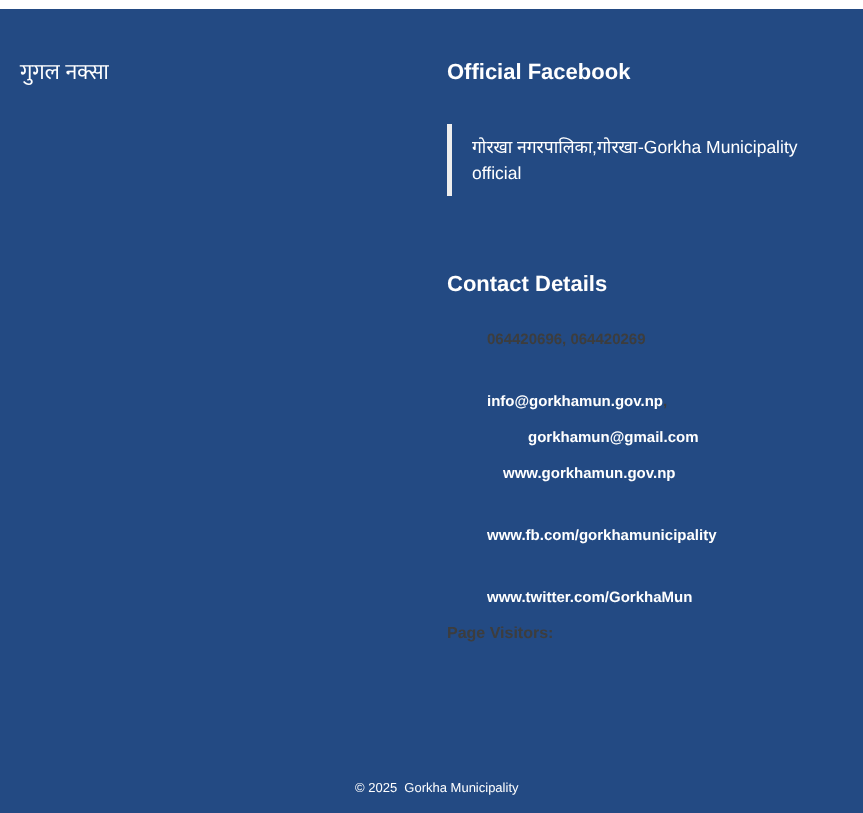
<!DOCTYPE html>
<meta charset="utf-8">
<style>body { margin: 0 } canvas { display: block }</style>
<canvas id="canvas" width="863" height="813"></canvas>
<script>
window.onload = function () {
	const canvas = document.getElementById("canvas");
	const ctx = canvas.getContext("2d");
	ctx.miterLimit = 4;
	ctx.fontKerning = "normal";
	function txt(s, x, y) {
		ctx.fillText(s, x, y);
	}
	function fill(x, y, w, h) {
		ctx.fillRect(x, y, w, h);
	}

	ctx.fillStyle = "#FFFFFF";
	fill(0, 0, 863, 813);
	ctx.fillStyle = "#234A83";
	fill(0, 9, 863, 804);
	ctx.fillStyle = "#EEEEEE";
	fill(447, 124, 5, 72);
	ctx.wordSpacing = "1px";
	ctx.font = "22px Mukta";
	ctx.fillStyle = "#FFFFFF";
	txt("गुगल नक्सा", 20, 79);
	ctx.wordSpacing = "0px";
	ctx.font = "bold 22px Liberation Sans";
	txt("Official Facebook", 447, 79);
	ctx.font = "17.5px Noto Sans";
	txt("गोरखा", 472, 153);
	txt("नगरपालिका", 517, 153);
	ctx.font = "17.5px Liberation Sans";
	txt("-Gorkha Municipality", 638, 153);
	txt(",", 592, 153);
	ctx.font = "17.5px Noto Sans";
	txt("गोरखा", 597, 153);
	ctx.font = "17.5px Liberation Sans";
	txt("official", 472, 179);
	ctx.font = "bold 22px Liberation Sans";
	txt("Contact Details", 447, 291);
	ctx.font = "bold 15px Liberation Sans";
	ctx.fillStyle = "#3D3D3D";
	txt("064420696, 064420269", 487, 344);
	ctx.fillStyle = "#FFFFFF";
	txt("info@gorkhamun.gov.np", 487, 406);
	ctx.fillStyle = "#3D3D3D";
	txt(",", 663, 406);
	ctx.fillStyle = "#FFFFFF";
	txt("gorkhamun@gmail.com", 528, 442);
	txt("www.gorkhamun.gov.np", 503, 478);
	txt("www.fb.com/gorkhamunicipality", 487, 540);
	txt("www.twitter.com/GorkhaMun", 487, 602);
	ctx.font = "bold 16px Liberation Sans";
	ctx.fillStyle = "#3D3D3D";
	txt("Page Visitors:", 447, 638);
	ctx.font = "13px Liberation Sans";
	ctx.fillStyle = "#FFFFFF";
	txt("© 2025  Gorkha Municipality", 355, 792);
};
</script>
